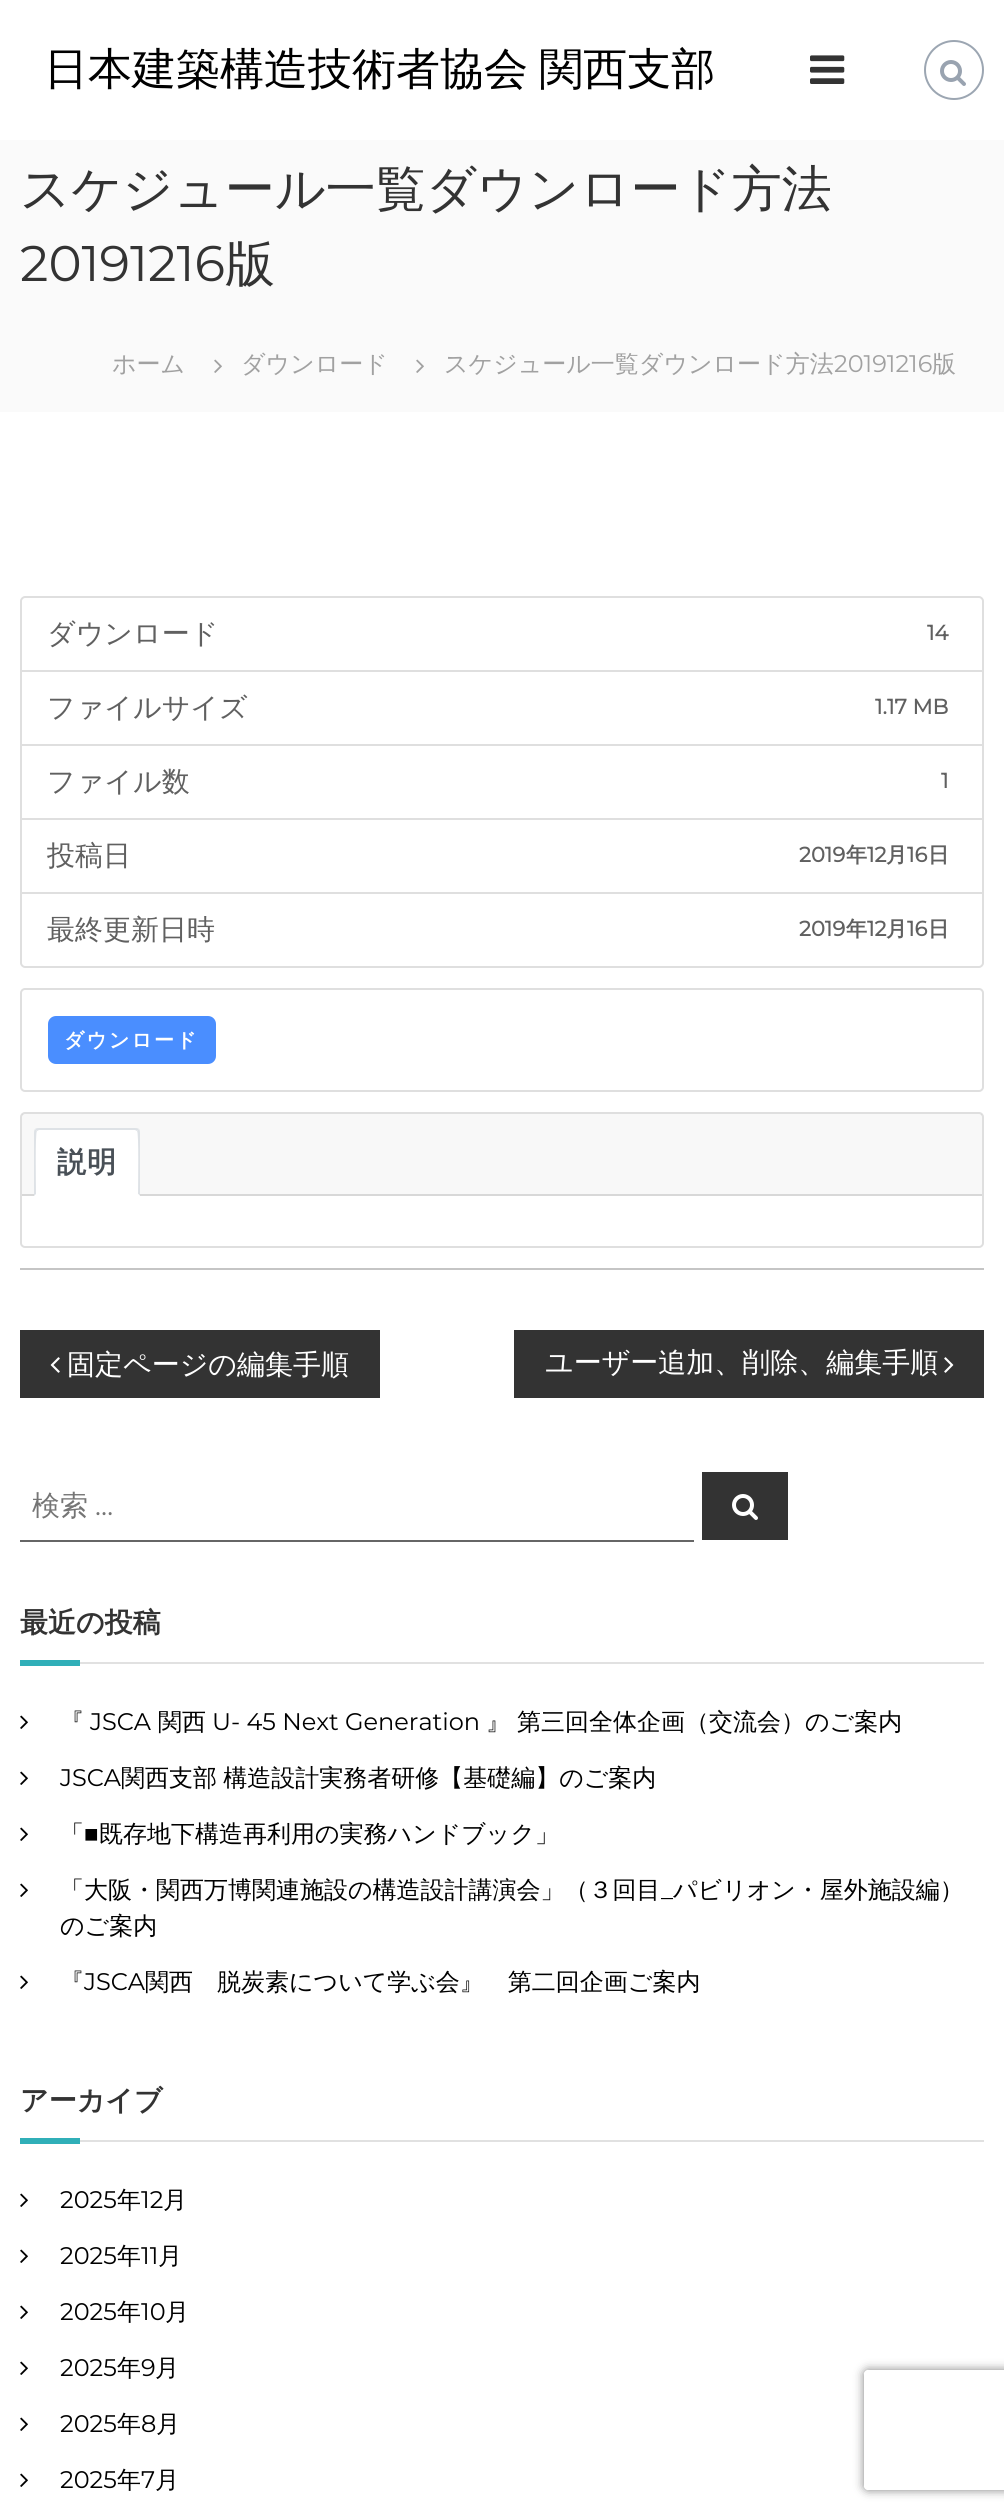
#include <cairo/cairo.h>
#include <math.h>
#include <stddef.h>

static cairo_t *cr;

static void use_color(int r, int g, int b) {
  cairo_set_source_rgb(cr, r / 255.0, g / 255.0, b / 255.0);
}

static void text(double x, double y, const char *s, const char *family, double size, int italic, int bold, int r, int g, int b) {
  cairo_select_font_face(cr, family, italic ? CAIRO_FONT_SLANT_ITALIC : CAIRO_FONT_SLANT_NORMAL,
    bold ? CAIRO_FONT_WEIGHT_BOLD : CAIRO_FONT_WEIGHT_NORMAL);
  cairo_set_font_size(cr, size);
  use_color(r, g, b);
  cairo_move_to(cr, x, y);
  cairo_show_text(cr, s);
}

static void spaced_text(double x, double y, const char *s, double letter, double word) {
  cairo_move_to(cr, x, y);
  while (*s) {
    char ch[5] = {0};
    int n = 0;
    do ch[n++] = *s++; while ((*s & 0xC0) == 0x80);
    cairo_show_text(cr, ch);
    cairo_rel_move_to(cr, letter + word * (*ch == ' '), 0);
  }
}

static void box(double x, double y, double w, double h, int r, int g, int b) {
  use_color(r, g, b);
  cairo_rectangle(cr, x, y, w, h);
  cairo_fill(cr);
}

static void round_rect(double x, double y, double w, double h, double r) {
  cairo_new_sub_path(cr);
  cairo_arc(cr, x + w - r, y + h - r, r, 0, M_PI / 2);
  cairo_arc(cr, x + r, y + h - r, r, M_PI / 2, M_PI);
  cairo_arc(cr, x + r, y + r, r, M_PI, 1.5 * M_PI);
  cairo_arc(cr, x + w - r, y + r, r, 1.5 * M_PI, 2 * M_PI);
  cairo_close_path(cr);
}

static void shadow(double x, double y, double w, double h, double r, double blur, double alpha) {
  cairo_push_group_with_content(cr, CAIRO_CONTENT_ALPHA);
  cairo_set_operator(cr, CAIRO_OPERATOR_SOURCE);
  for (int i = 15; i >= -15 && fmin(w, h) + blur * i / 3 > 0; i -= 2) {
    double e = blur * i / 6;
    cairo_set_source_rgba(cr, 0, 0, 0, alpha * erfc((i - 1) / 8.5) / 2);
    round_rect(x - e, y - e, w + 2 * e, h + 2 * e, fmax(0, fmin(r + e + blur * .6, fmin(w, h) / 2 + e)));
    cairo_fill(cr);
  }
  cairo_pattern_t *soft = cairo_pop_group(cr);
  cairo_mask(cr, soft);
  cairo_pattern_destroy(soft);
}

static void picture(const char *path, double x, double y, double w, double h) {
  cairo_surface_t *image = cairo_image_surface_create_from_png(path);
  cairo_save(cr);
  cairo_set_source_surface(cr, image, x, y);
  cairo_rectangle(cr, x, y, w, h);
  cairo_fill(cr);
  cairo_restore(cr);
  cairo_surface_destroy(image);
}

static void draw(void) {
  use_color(255, 255, 255);
  cairo_paint(cr);
  picture("img_01.png", 810, 55, 35, 29);
  cairo_arc(cr, 954, 70, 29, 0, 2 * M_PI);
  use_color(156, 166, 178);
  cairo_stroke(cr);
  picture("img_02.png", 940, 60, 26, 26);
  box(0, 140, 1004, 272, 250, 250, 250);
  picture("img_03.png", 214, 359, 8, 14);
  picture("img_03.png", 416, 359, 8, 14);
  box(20, 1268, 964, 2, 197, 197, 197);
  cairo_new_path(cr);
  cairo_move_to(cr, 25, 597);
  cairo_line_to(cr, 979, 597);
  cairo_curve_to(cr, 981, 597, 983, 599, 983, 601);
  cairo_line_to(cr, 983, 671);
  cairo_line_to(cr, 21, 671);
  cairo_line_to(cr, 21, 601);
  cairo_curve_to(cr, 21, 599, 23, 597, 25, 597);
  cairo_close_path(cr);
  use_color(223, 223, 223);
  cairo_stroke(cr);
  cairo_rectangle(cr, 21, 671, 962, 74);
  cairo_stroke(cr);
  cairo_rectangle(cr, 21, 745, 962, 74);
  cairo_stroke(cr);
  cairo_rectangle(cr, 21, 819, 962, 74);
  cairo_stroke(cr);
  use_color(255, 255, 255);
  cairo_new_path(cr);
  cairo_move_to(cr, 21, 893);
  cairo_line_to(cr, 983, 893);
  cairo_line_to(cr, 983, 963);
  cairo_curve_to(cr, 983, 965, 981, 967, 979, 967);
  cairo_line_to(cr, 25, 967);
  cairo_curve_to(cr, 23, 967, 21, 965, 21, 963);
  cairo_close_path(cr);
  cairo_fill_preserve(cr);
  use_color(223, 223, 223);
  cairo_stroke(cr);
  round_rect(21, 989, 962, 102, 4);
  cairo_stroke(cr);
  use_color(74, 142, 255);
  round_rect(49, 1017, 166, 46, 7);
  cairo_fill_preserve(cr);
  cairo_stroke(cr);
  round_rect(21, 1113, 962, 134, 4);
  use_color(223, 223, 223);
  cairo_stroke(cr);
  cairo_set_source_rgba(cr, 0, 0, 0, 0.03);
  cairo_rectangle(cr, 22, 1114, 960, 80);
  cairo_fill(cr);
  box(22, 1194, 960, 2, 216, 216, 216);
  use_color(255, 255, 255);
  cairo_new_path(cr);
  cairo_move_to(cr, 39, 1128);
  cairo_line_to(cr, 135, 1128);
  cairo_curve_to(cr, 138, 1128, 140, 1130, 140, 1133);
  cairo_line_to(cr, 140, 1196);
  cairo_line_to(cr, 34, 1196);
  cairo_line_to(cr, 34, 1133);
  cairo_curve_to(cr, 34, 1130, 36, 1128, 39, 1128);
  cairo_close_path(cr);
  cairo_fill(cr);
  use_color(222, 226, 230);
  cairo_new_path(cr);
  cairo_move_to(cr, 39, 1128);
  cairo_curve_to(cr, 38, 1128, 36, 1128, 35, 1129);
  cairo_line_to(cr, 37, 1131);
  cairo_line_to(cr, 39, 1130);
  cairo_line_to(cr, 135, 1130);
  cairo_line_to(cr, 137, 1131);
  cairo_line_to(cr, 139, 1129);
  cairo_curve_to(cr, 138, 1128, 136, 1128, 135, 1128);
  cairo_close_path(cr);
  cairo_fill(cr);
  cairo_new_path(cr);
  cairo_move_to(cr, 140, 1196);
  cairo_line_to(cr, 140, 1133);
  cairo_curve_to(cr, 140, 1132, 140, 1130, 139, 1129);
  cairo_line_to(cr, 137, 1131);
  cairo_curve_to(cr, 139, 1132, 138, 1187, 138, 1194);
  cairo_close_path(cr);
  cairo_fill(cr);
  use_color(255, 255, 255);
  cairo_new_path(cr);
  cairo_move_to(cr, 140, 1196);
  cairo_line_to(cr, 138, 1194);
  cairo_line_to(cr, 36, 1194);
  cairo_line_to(cr, 34, 1196);
  cairo_close_path(cr);
  cairo_fill(cr);
  use_color(222, 226, 230);
  cairo_new_path(cr);
  cairo_move_to(cr, 34, 1196);
  cairo_line_to(cr, 36, 1194);
  cairo_curve_to(cr, 36, 1187, 35, 1132, 37, 1131);
  cairo_line_to(cr, 35, 1129);
  cairo_curve_to(cr, 34, 1130, 34, 1132, 34, 1133);
  cairo_close_path(cr);
  cairo_fill(cr);
  box(20, 1330, 360, 68, 51, 51, 51);
  picture("img_04.png", 50, 1357, 10, 16);
  box(514, 1330, 470, 68, 51, 51, 51);
  picture("img_05.png", 944, 1357, 10, 16);
  box(20, 1540, 674, 2, 102, 102, 102);
  box(702, 1472, 86, 68, 51, 51, 51);
  picture("img_06.png", 732, 1494, 26, 26);
  box(20, 1660, 60, 6, 48, 175, 184);
  box(80, 1662, 904, 2, 225, 225, 225);
  picture("img_07.png", 20, 1715, 8, 14);
  picture("img_07.png", 20, 1771, 8, 14);
  picture("img_07.png", 20, 1827, 8, 14);
  picture("img_07.png", 20, 1883, 8, 14);
  picture("img_07.png", 20, 1975, 8, 14);
  box(20, 2138, 60, 6, 48, 175, 184);
  box(80, 2140, 904, 2, 225, 225, 225);
  picture("img_07.png", 20, 2193, 8, 14);
  picture("img_07.png", 20, 2249, 8, 14);
  picture("img_07.png", 20, 2305, 8, 14);
  picture("img_07.png", 20, 2361, 8, 14);
  picture("img_07.png", 20, 2417, 8, 14);
  picture("img_07.png", 20, 2473, 8, 14);
  cairo_save(cr);
  cairo_set_fill_rule(cr, CAIRO_FILL_RULE_EVEN_ODD);
  cairo_new_path(cr);
  cairo_move_to(cr, 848, 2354);
  cairo_line_to(cr, 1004, 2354);
  cairo_line_to(cr, 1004, 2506);
  cairo_line_to(cr, 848, 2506);
  cairo_close_path(cr);
  cairo_move_to(cr, 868, 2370);
  cairo_line_to(cr, 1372, 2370);
  cairo_curve_to(cr, 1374, 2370, 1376, 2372, 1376, 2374);
  cairo_line_to(cr, 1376, 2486);
  cairo_curve_to(cr, 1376, 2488, 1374, 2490, 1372, 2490);
  cairo_line_to(cr, 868, 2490);
  cairo_curve_to(cr, 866, 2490, 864, 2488, 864, 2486);
  cairo_line_to(cr, 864, 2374);
  cairo_curve_to(cr, 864, 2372, 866, 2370, 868, 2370);
  cairo_close_path(cr);
  cairo_clip(cr);
  use_color(128, 128, 128);
  shadow(864, 2370, 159, 120, 4, 5, 1);
  cairo_restore(cr);
  cairo_select_font_face(cr, "WenQuanYi Zen Hei Medium", CAIRO_FONT_SLANT_NORMAL, CAIRO_FONT_WEIGHT_NORMAL);
  cairo_set_font_size(cr, 44);
  use_color(0, 0, 0);
  spaced_text(44, 84, "日本建築構造技術者協会 関西支部", 0, -2);
  text(20, 206, "スケジュール一覧ダウンロード方法", "WenQuanYi Zen Hei Medium", 50, 0, 0, 51, 51, 51);
  text(20, 281, "20191216", "Montserrat Thin", 50, 0, 0, 51, 51, 51);
  text(225, 281, "版", "WenQuanYi Zen Hei Medium", 50, 0, 0, 51, 51, 51);
  text(112, 372, "ホーム", "WenQuanYi Zen Hei Medium", 24, 0, 0, 161, 161, 161);
  text(241, 372, "ダウンロード", "WenQuanYi Zen Hei Medium", 24, 0, 0, 161, 161, 161);
  text(444, 372, "スケジュール一覧ダウンロード方法", "WenQuanYi Zen Hei Medium", 24, 0, 0, 161, 161, 161);
  text(834, 372, "20191216", "Montserrat Thin", 24, 0, 0, 161, 161, 161);
  text(932, 372, "版", "WenQuanYi Zen Hei Medium", 24, 0, 0, 161, 161, 161);
  text(47, 643, "ダウンロード", "WenQuanYi Zen Hei Medium", 28, 0, 0, 96, 96, 96);
  text(927, 640, "14", "Montserrat", 21, 0, 1, 96, 96, 96);
  text(47, 717, "ファイルサイズ", "WenQuanYi Zen Hei Medium", 28, 0, 0, 96, 96, 96);
  text(875, 714, "1.17 MB", "Montserrat", 21, 0, 1, 96, 96, 96);
  text(47, 791, "ファイル数", "WenQuanYi Zen Hei Medium", 28, 0, 0, 96, 96, 96);
  text(941, 788, "1", "Montserrat", 21, 0, 1, 96, 96, 96);
  text(47, 865, "投稿日", "WenQuanYi Zen Hei Medium", 28, 0, 0, 96, 96, 96);
  text(799, 862, "2019", "Montserrat", 21, 0, 1, 96, 96, 96);
  text(846, 862, "年", "WenQuanYi Zen Hei", 21, 0, 1, 96, 96, 96);
  text(867, 862, "12", "Montserrat", 21, 0, 1, 96, 96, 96);
  text(886, 862, "月", "WenQuanYi Zen Hei", 21, 0, 1, 96, 96, 96);
  text(907, 862, "16", "Montserrat", 21, 0, 1, 96, 96, 96);
  text(928, 862, "日", "WenQuanYi Zen Hei", 21, 0, 1, 96, 96, 96);
  text(47, 939, "最終更新日時", "WenQuanYi Zen Hei Medium", 28, 0, 0, 96, 96, 96);
  text(799, 936, "2019", "Montserrat", 21, 0, 1, 96, 96, 96);
  text(846, 936, "年", "WenQuanYi Zen Hei", 21, 0, 1, 96, 96, 96);
  text(867, 936, "12", "Montserrat", 21, 0, 1, 96, 96, 96);
  text(886, 936, "月", "WenQuanYi Zen Hei", 21, 0, 1, 96, 96, 96);
  text(907, 936, "16", "Montserrat", 21, 0, 1, 96, 96, 96);
  text(928, 936, "日", "WenQuanYi Zen Hei", 21, 0, 1, 96, 96, 96);
  cairo_set_font_size(cr, 20);
  use_color(255, 255, 255);
  spaced_text(64, 1047, "ダウンロード", 2, 0);
  cairo_set_font_size(cr, 29);
  use_color(73, 80, 87);
  spaced_text(57, 1172, "説明", 1, 0);
  text(67, 1374, "固定ページの編集手順", "WenQuanYi Zen Hei Medium", 28, 0, 0, 255, 255, 255);
  text(545, 1372, "ユーザー追加、削除、編集手順", "WenQuanYi Zen Hei Medium", 28, 0, 0, 255, 255, 255);
  text(32, 1515, "検索", "WenQuanYi Zen Hei Medium", 28, 0, 0, 117, 117, 117);
  text(95, 1515, "…", "Montserrat Thin", 28, 0, 0, 117, 117, 117);
  text(20, 1632, "最近の投稿", "WenQuanYi Zen Hei", 28, 0, 1, 51, 51, 51);
  text(60, 1730, "『", "WenQuanYi Zen Hei Medium", 24, 0, 0, 0, 0, 0);
  text(90, 1730, "JSCA", "Montserrat Thin", 24, 0, 0, 0, 0, 0);
  text(158, 1730, "関西", "WenQuanYi Zen Hei Medium", 24, 0, 0, 0, 0, 0);
  text(212, 1730, "U- 45 Next Generation", "Montserrat Thin", 24, 0, 0, 0, 0, 0);
  text(486, 1730, "』", "WenQuanYi Zen Hei Medium", 24, 0, 0, 0, 0, 0);
  text(517, 1730, "第三回全体企画（交流会）のご案内", "WenQuanYi Zen Hei Medium", 24, 0, 0, 0, 0, 0);
  text(60, 1786, "JSCA", "Montserrat Thin", 24, 0, 0, 0, 0, 0);
  cairo_select_font_face(cr, "WenQuanYi Zen Hei Medium", CAIRO_FONT_SLANT_NORMAL, CAIRO_FONT_WEIGHT_NORMAL);
  spaced_text(121, 1786, "関西支部 構造設計実務者研修【基礎編】のご案内", 0, -1);
  text(60, 1842, "「", "WenQuanYi Zen Hei Medium", 24, 0, 0, 0, 0, 0);
  text(84, 1842, "■", "Liberation Sans", 24, 0, 0, 0, 0, 0);
  text(99, 1842, "既存地下構造再利用の実務ハンドブック」", "WenQuanYi Zen Hei Medium", 24, 0, 0, 0, 0, 0);
  text(60, 1898, "「大阪・関西万博関連施設の構造設計講演会」（３回目", "WenQuanYi Zen Hei Medium", 24, 0, 0, 0, 0, 0);
  text(661, 1898, "_", "Montserrat Thin", 24, 0, 0, 0, 0, 0);
  text(673, 1898, "パビリオン・屋外施設編）", "WenQuanYi Zen Hei Medium", 24, 0, 0, 0, 0, 0);
  text(60, 1934, "のご案内", "WenQuanYi Zen Hei Medium", 24, 0, 0, 0, 0, 0);
  text(60, 1990, "『", "WenQuanYi Zen Hei Medium", 24, 0, 0, 0, 0, 0);
  text(84, 1990, "JSCA", "Montserrat Thin", 24, 0, 0, 0, 0, 0);
  text(145, 1990, "関西　脱炭素について学ぶ会』　第二回企画ご案内", "WenQuanYi Zen Hei Medium", 24, 0, 0, 0, 0, 0);
  text(20, 2110, "アーカイブ", "WenQuanYi Zen Hei", 28, 0, 1, 51, 51, 51);
  text(60, 2208, "2025", "Montserrat Thin", 24, 0, 0, 0, 0, 0);
  text(117, 2208, "年", "WenQuanYi Zen Hei Medium", 24, 0, 0, 0, 0, 0);
  text(141, 2208, "12", "Montserrat Thin", 24, 0, 0, 0, 0, 0);
  text(163, 2208, "月", "WenQuanYi Zen Hei Medium", 24, 0, 0, 0, 0, 0);
  text(60, 2264, "2025", "Montserrat Thin", 24, 0, 0, 0, 0, 0);
  text(117, 2264, "年", "WenQuanYi Zen Hei Medium", 24, 0, 0, 0, 0, 0);
  text(141, 2264, "11", "Montserrat Thin", 24, 0, 0, 0, 0, 0);
  text(158, 2264, "月", "WenQuanYi Zen Hei Medium", 24, 0, 0, 0, 0, 0);
  text(60, 2320, "2025", "Montserrat Thin", 24, 0, 0, 0, 0, 0);
  text(117, 2320, "年", "WenQuanYi Zen Hei Medium", 24, 0, 0, 0, 0, 0);
  text(141, 2320, "10", "Montserrat Thin", 24, 0, 0, 0, 0, 0);
  text(165, 2320, "月", "WenQuanYi Zen Hei Medium", 24, 0, 0, 0, 0, 0);
  text(60, 2376, "2025", "Montserrat Thin", 24, 0, 0, 0, 0, 0);
  text(117, 2376, "年", "WenQuanYi Zen Hei Medium", 24, 0, 0, 0, 0, 0);
  text(141, 2376, "9", "Montserrat Thin", 24, 0, 0, 0, 0, 0);
  text(155, 2376, "月", "WenQuanYi Zen Hei Medium", 24, 0, 0, 0, 0, 0);
  text(60, 2432, "2025", "Montserrat Thin", 24, 0, 0, 0, 0, 0);
  text(117, 2432, "年", "WenQuanYi Zen Hei Medium", 24, 0, 0, 0, 0, 0);
  text(141, 2432, "8", "Montserrat Thin", 24, 0, 0, 0, 0, 0);
  text(156, 2432, "月", "WenQuanYi Zen Hei Medium", 24, 0, 0, 0, 0, 0);
  text(60, 2488, "2025", "Montserrat Thin", 24, 0, 0, 0, 0, 0);
  text(117, 2488, "年", "WenQuanYi Zen Hei Medium", 24, 0, 0, 0, 0, 0);
  text(141, 2488, "7", "Montserrat Thin", 24, 0, 0, 0, 0, 0);
  text(155, 2488, "月", "WenQuanYi Zen Hei Medium", 24, 0, 0, 0, 0, 0);
}

int main(void) {
  cairo_surface_t *surface = cairo_image_surface_create(CAIRO_FORMAT_RGB24, 1004, 2517);
  cr = cairo_create(surface);
  cairo_font_options_t *options = cairo_font_options_create();
  cairo_font_options_set_hint_metrics(options, CAIRO_HINT_METRICS_OFF);
  cairo_font_options_set_hint_style(options, CAIRO_HINT_STYLE_NONE);
  cairo_set_font_options(cr, options);
  cairo_set_miter_limit(cr, 4);
  draw();
  cairo_surface_write_to_png(surface, "out.png");
  cairo_font_options_destroy(options);
  cairo_destroy(cr);
  cairo_surface_destroy(surface);
  return 0;
}
